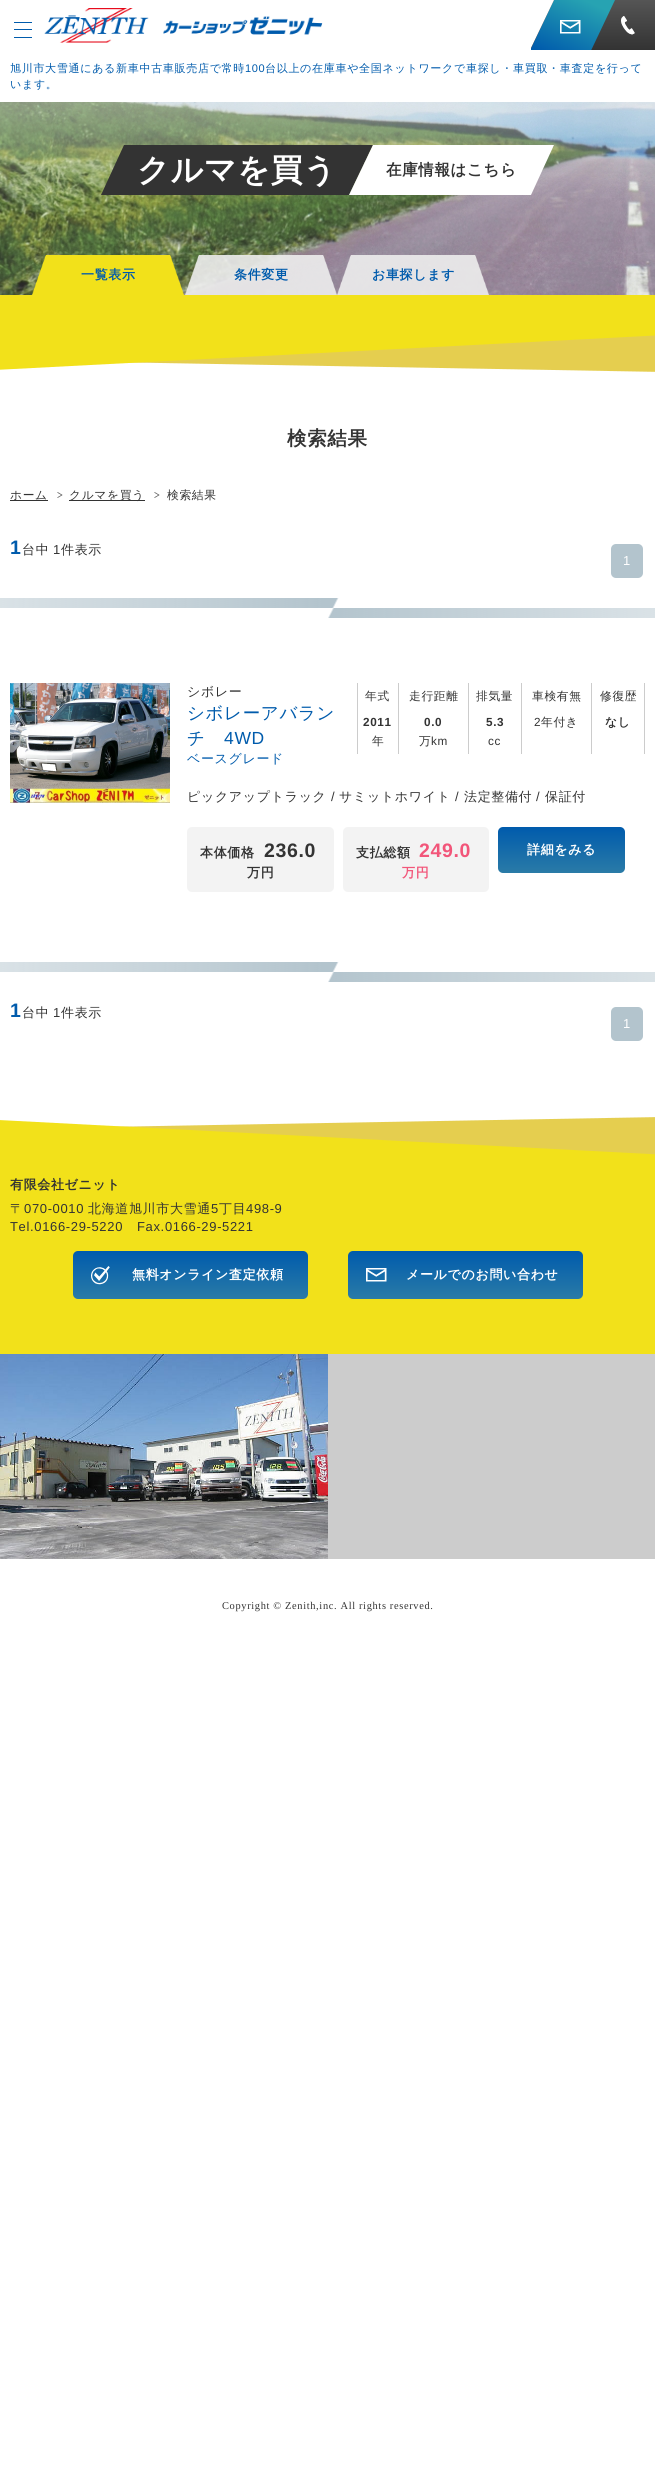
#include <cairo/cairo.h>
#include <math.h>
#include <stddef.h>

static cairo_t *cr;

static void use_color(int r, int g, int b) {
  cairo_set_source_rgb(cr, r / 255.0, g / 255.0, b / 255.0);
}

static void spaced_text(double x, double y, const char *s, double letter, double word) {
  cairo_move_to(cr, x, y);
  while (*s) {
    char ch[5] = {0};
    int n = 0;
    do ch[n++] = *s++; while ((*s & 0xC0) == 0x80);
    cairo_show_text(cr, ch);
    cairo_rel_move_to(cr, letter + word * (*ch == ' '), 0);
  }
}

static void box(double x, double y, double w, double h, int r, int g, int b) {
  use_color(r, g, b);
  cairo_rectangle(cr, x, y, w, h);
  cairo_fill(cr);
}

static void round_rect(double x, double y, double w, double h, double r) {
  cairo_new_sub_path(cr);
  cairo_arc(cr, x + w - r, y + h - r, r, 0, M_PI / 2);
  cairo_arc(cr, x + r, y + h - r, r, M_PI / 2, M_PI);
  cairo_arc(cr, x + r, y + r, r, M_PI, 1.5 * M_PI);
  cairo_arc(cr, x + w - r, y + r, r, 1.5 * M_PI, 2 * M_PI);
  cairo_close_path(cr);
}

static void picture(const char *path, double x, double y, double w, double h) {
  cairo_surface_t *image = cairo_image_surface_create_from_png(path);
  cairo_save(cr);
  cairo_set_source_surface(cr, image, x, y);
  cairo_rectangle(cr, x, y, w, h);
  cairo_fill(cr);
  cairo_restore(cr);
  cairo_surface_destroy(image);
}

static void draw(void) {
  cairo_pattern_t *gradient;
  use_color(255, 255, 255);
  cairo_paint(cr);
  gradient = cairo_pattern_create_linear(593, 0, 593, 50);
  cairo_pattern_add_color_stop_rgba(gradient, 0, 0.333, 0.333, 0.333, 1);
  cairo_pattern_add_color_stop_rgba(gradient, 1, 0.2, 0.2, 0.2, 1);
  cairo_set_source(cr, gradient);
  cairo_pattern_destroy(gradient);
  cairo_rectangle(cr, 531, 0, 124, 50);
  cairo_fill(cr);
  cairo_save(cr);
  cairo_rectangle(cr, 531, 0, 124, 50);
  cairo_clip(cr);
  gradient = cairo_pattern_create_linear(584, 0, 557, 59);
  cairo_pattern_add_color_stop_rgba(gradient, 0, 0.153, 0.639, 0.698, 1);
  cairo_pattern_add_color_stop_rgba(gradient, 1, 0, 0.357, 0.675, 1);
  cairo_set_source(cr, gradient);
  cairo_pattern_destroy(gradient);
  cairo_new_path(cr);
  cairo_move_to(cr, 554, 0);
  cairo_line_to(cr, 615, 0);
  cairo_line_to(cr, 587, 59);
  cairo_line_to(cr, 526, 59);
  cairo_close_path(cr);
  cairo_fill(cr);
  cairo_restore(cr);
  use_color(255, 255, 255);
  cairo_new_path(cr);
  cairo_move_to(cr, 12, 0);
  cairo_line_to(cr, 554, 0);
  cairo_line_to(cr, 530, 50);
  cairo_line_to(cr, -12, 50);
  cairo_close_path(cr);
  cairo_fill(cr);
  box(14, 22, 18, 1, 0, 91, 172);
  box(14, 29, 18, 1, 0, 91, 172);
  box(14, 37, 18, 1, 0, 91, 172);
  picture("img_01.png", 44, 8, 279, 35);
  picture("img_02.png", 560, 20, 21, 14);
  picture("img_03.png", 621, 16, 14, 19);
  use_color(229, 206, 79);
  cairo_new_path(cr);
  cairo_move_to(cr, -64, 251);
  cairo_line_to(cr, 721, 265);
  cairo_line_to(cr, 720, 373);
  cairo_line_to(cr, -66, 359);
  cairo_close_path(cr);
  cairo_fill(cr);
  use_color(242, 225, 26);
  cairo_new_path(cr);
  cairo_move_to(cr, -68, 265);
  cairo_line_to(cr, 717, 224);
  cairo_line_to(cr, 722, 332);
  cairo_line_to(cr, -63, 373);
  cairo_close_path(cr);
  cairo_fill(cr);
  picture("img_04.png", 0, 102, 655, 193);
  use_color(51, 51, 51);
  cairo_new_path(cr);
  cairo_move_to(cr, 124, 145);
  cairo_line_to(cr, 373, 145);
  cairo_line_to(cr, 349, 195);
  cairo_line_to(cr, 101, 195);
  cairo_close_path(cr);
  cairo_fill(cr);
  use_color(255, 255, 255);
  cairo_new_path(cr);
  cairo_move_to(cr, 373, 145);
  cairo_line_to(cr, 554, 145);
  cairo_line_to(cr, 531, 195);
  cairo_line_to(cr, 349, 195);
  cairo_close_path(cr);
  cairo_fill(cr);
  picture("img_05.png", 32, 255, 152, 40);
  picture("img_06.png", 185, 255, 152, 40);
  picture("img_07.png", 337, 255, 152, 40);
  box(10, 500, 38, 1, 51, 51, 51);
  picture("img_08.png", 57, 492, 6, 6);
  box(69, 500, 76, 1, 51, 51, 51);
  picture("img_08.png", 154, 492, 6, 6);
  picture("img_09.png", 0, 598, 655, 20);
  use_color(179, 196, 205);
  round_rect(611, 544, 32, 34, 5);
  cairo_fill(cr);
  picture("img_10.png", 10, 683, 160, 120);
  box(357, 683, 1, 71, 204, 204, 204);
  box(398, 683, 1, 71, 204, 204, 204);
  box(468, 683, 1, 71, 204, 204, 204);
  box(521, 683, 1, 71, 204, 204, 204);
  box(591, 683, 1, 71, 204, 204, 204);
  box(644, 683, 1, 71, 204, 204, 204);
  use_color(243, 243, 243);
  round_rect(187, 827, 147, 65, 5);
  cairo_fill(cr);
  round_rect(343, 827, 146, 65, 5);
  cairo_fill(cr);
  gradient = cairo_pattern_create_linear(562, 827, 562, 873);
  cairo_pattern_add_color_stop_rgba(gradient, 0, 0, 0.357, 0.675, 1);
  cairo_pattern_add_color_stop_rgba(gradient, 1, 0.165, 0.482, 0.655, 1);
  cairo_set_source(cr, gradient);
  cairo_pattern_destroy(gradient);
  round_rect(498, 827, 127, 46, 5);
  cairo_fill(cr);
  picture("img_09.png", 0, 962, 655, 20);
  use_color(179, 196, 205);
  round_rect(611, 1007, 32, 34, 5);
  cairo_fill(cr);
  use_color(229, 206, 79);
  cairo_new_path(cr);
  cairo_move_to(cr, -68, 1130);
  cairo_line_to(cr, 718, 1116);
  cairo_line_to(cr, 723, 1362);
  cairo_line_to(cr, -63, 1376);
  cairo_close_path(cr);
  cairo_fill(cr);
  use_color(242, 225, 26);
  cairo_new_path(cr);
  cairo_move_to(cr, -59, 1117);
  cairo_line_to(cr, 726, 1158);
  cairo_line_to(cr, 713, 1403);
  cairo_line_to(cr, -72, 1362);
  cairo_close_path(cr);
  cairo_fill(cr);
  gradient = cairo_pattern_create_linear(191, 1251, 191, 1299);
  cairo_pattern_add_color_stop_rgba(gradient, 0, 0, 0.357, 0.675, 1);
  cairo_pattern_add_color_stop_rgba(gradient, 1, 0.165, 0.482, 0.655, 1);
  cairo_set_source(cr, gradient);
  cairo_pattern_destroy(gradient);
  round_rect(73, 1251, 235, 48, 5);
  cairo_fill(cr);
  picture("img_11.png", 91, 1266, 19, 19);
  gradient = cairo_pattern_create_linear(466, 1251, 466, 1299);
  cairo_pattern_add_color_stop_rgba(gradient, 0, 0, 0.357, 0.675, 1);
  cairo_pattern_add_color_stop_rgba(gradient, 1, 0.165, 0.482, 0.655, 1);
  cairo_set_source(cr, gradient);
  cairo_pattern_destroy(gradient);
  round_rect(348, 1251, 235, 48, 5);
  cairo_fill(cr);
  picture("img_12.png", 366, 1268, 21, 14);
  box(328, 1354, 327, 205, 204, 204, 204);
  picture("img_13.png", 0, 1354, 328, 205);
  cairo_select_font_face(cr, "WenQuanYi Zen Hei Medium", CAIRO_FONT_SLANT_NORMAL, CAIRO_FONT_WEIGHT_NORMAL);
  cairo_set_font_size(cr, 11.05);
  use_color(0, 91, 172);
  spaced_text(10, 72, "旭川市大雪通にある新車中古車販売店で常時", 0.65, 0);
  cairo_select_font_face(cr, "Liberation Sans", CAIRO_FONT_SLANT_NORMAL, CAIRO_FONT_WEIGHT_NORMAL);
  spaced_text(245, 72, "100", 0.65, 0);
  cairo_select_font_face(cr, "WenQuanYi Zen Hei Medium", CAIRO_FONT_SLANT_NORMAL, CAIRO_FONT_WEIGHT_NORMAL);
  spaced_text(265, 72, "台以上の在庫車や全国ネットワークで車探し・車買取・車査定を行って", 0.65, 0);
  spaced_text(10, 88, "います。", 0.65, 0);
  cairo_select_font_face(cr, "WenQuanYi Zen Hei", CAIRO_FONT_SLANT_NORMAL, CAIRO_FONT_WEIGHT_BOLD);
  cairo_set_font_size(cr, 32);
  use_color(255, 255, 255);
  spaced_text(137, 181, "クルマを買う", 0.65, 0);
  cairo_set_font_size(cr, 15.5);
  use_color(51, 51, 51);
  spaced_text(386, 175, "在庫情報はこちら", 0.65, 0);
  cairo_set_font_size(cr, 13);
  use_color(0, 91, 172);
  spaced_text(81, 279, "一覧表示", 0.65, 0);
  spaced_text(234, 279, "条件変更", 0.65, 0);
  spaced_text(372, 279, "お車探します", 0.65, 0);
  cairo_set_font_size(cr, 19.5);
  use_color(51, 51, 51);
  spaced_text(287, 445, "検索結果", 0.65, 0);
  cairo_select_font_face(cr, "WenQuanYi Zen Hei Medium", CAIRO_FONT_SLANT_NORMAL, CAIRO_FONT_WEIGHT_NORMAL);
  cairo_set_font_size(cr, 11.75);
  spaced_text(10, 499, "ホーム", 0.65, 0);
  spaced_text(69, 499, "クルマを買う", 0.65, 0);
  spaced_text(167, 499, "検索結果", 0.65, 0);
  cairo_select_font_face(cr, "Liberation Sans", CAIRO_FONT_SLANT_NORMAL, CAIRO_FONT_WEIGHT_BOLD);
  cairo_set_font_size(cr, 19.5);
  use_color(0, 91, 172);
  spaced_text(10, 554, "1", 0.65, 0);
  cairo_select_font_face(cr, "WenQuanYi Zen Hei Medium", CAIRO_FONT_SLANT_NORMAL, CAIRO_FONT_WEIGHT_NORMAL);
  cairo_set_font_size(cr, 13);
  use_color(51, 51, 51);
  spaced_text(22, 554, "台中", 0.65, 0);
  cairo_select_font_face(cr, "Liberation Sans", CAIRO_FONT_SLANT_NORMAL, CAIRO_FONT_WEIGHT_NORMAL);
  spaced_text(53, 554, "1", 0.65, 0);
  cairo_select_font_face(cr, "WenQuanYi Zen Hei Medium", CAIRO_FONT_SLANT_NORMAL, CAIRO_FONT_WEIGHT_NORMAL);
  spaced_text(61, 554, "件表示", 0.65, 0);
  cairo_select_font_face(cr, "Liberation Sans", CAIRO_FONT_SLANT_NORMAL, CAIRO_FONT_WEIGHT_NORMAL);
  use_color(255, 255, 255);
  spaced_text(623, 565, "1", 0.65, 0);
  cairo_select_font_face(cr, "WenQuanYi Zen Hei Medium", CAIRO_FONT_SLANT_NORMAL, CAIRO_FONT_WEIGHT_NORMAL);
  use_color(51, 51, 51);
  spaced_text(187, 696, "シボレー", 0.65, 0);
  cairo_set_font_size(cr, 17.5);
  use_color(0, 91, 172);
  spaced_text(187, 719, "シボレーアバラン", 0.65, 0);
  spaced_text(187, 744, "チ", 0.65, 0);
  cairo_select_font_face(cr, "Liberation Sans", CAIRO_FONT_SLANT_NORMAL, CAIRO_FONT_WEIGHT_NORMAL);
  spaced_text(224, 744, "4WD", 0.65, 0);
  cairo_select_font_face(cr, "WenQuanYi Zen Hei Medium", CAIRO_FONT_SLANT_NORMAL, CAIRO_FONT_WEIGHT_NORMAL);
  cairo_set_font_size(cr, 13);
  spaced_text(187, 763, "ベースグレード", 0.65, 0);
  cairo_set_font_size(cr, 11.75);
  use_color(51, 51, 51);
  spaced_text(365, 700, "年式", 0.65, 0);
  cairo_select_font_face(cr, "Liberation Sans", CAIRO_FONT_SLANT_NORMAL, CAIRO_FONT_WEIGHT_BOLD);
  spaced_text(363, 726, "2011", 0.65, 0);
  cairo_select_font_face(cr, "WenQuanYi Zen Hei Medium", CAIRO_FONT_SLANT_NORMAL, CAIRO_FONT_WEIGHT_NORMAL);
  spaced_text(372, 745, "年", 0.65, 0);
  spaced_text(409, 700, "走行距離", 0.65, 0);
  cairo_select_font_face(cr, "Liberation Sans", CAIRO_FONT_SLANT_NORMAL, CAIRO_FONT_WEIGHT_BOLD);
  spaced_text(424, 726, "0.0", 0.65, 0);
  cairo_select_font_face(cr, "WenQuanYi Zen Hei Medium", CAIRO_FONT_SLANT_NORMAL, CAIRO_FONT_WEIGHT_NORMAL);
  spaced_text(419, 745, "万", 0.65, 0);
  cairo_select_font_face(cr, "Liberation Sans", CAIRO_FONT_SLANT_NORMAL, CAIRO_FONT_WEIGHT_NORMAL);
  spaced_text(431, 745, "km", 0.65, 0);
  cairo_select_font_face(cr, "WenQuanYi Zen Hei Medium", CAIRO_FONT_SLANT_NORMAL, CAIRO_FONT_WEIGHT_NORMAL);
  spaced_text(476, 700, "排気量", 0.65, 0);
  cairo_select_font_face(cr, "Liberation Sans", CAIRO_FONT_SLANT_NORMAL, CAIRO_FONT_WEIGHT_BOLD);
  spaced_text(486, 726, "5.3", 0.65, 0);
  cairo_select_font_face(cr, "Liberation Sans", CAIRO_FONT_SLANT_NORMAL, CAIRO_FONT_WEIGHT_NORMAL);
  spaced_text(488, 745, "cc", 0.65, 0);
  cairo_select_font_face(cr, "WenQuanYi Zen Hei Medium", CAIRO_FONT_SLANT_NORMAL, CAIRO_FONT_WEIGHT_NORMAL);
  spaced_text(532, 700, "車検有無", 0.65, 0);
  cairo_select_font_face(cr, "Liberation Sans", CAIRO_FONT_SLANT_NORMAL, CAIRO_FONT_WEIGHT_NORMAL);
  spaced_text(534, 726, "2", 0.65, 0);
  cairo_select_font_face(cr, "WenQuanYi Zen Hei Medium", CAIRO_FONT_SLANT_NORMAL, CAIRO_FONT_WEIGHT_NORMAL);
  spaced_text(541, 726, "年付き", 0.65, 0);
  spaced_text(600, 700, "修復歴", 0.65, 0);
  cairo_select_font_face(cr, "WenQuanYi Zen Hei", CAIRO_FONT_SLANT_NORMAL, CAIRO_FONT_WEIGHT_BOLD);
  spaced_text(605, 726, "なし", 0.65, 0);
  cairo_select_font_face(cr, "WenQuanYi Zen Hei Medium", CAIRO_FONT_SLANT_NORMAL, CAIRO_FONT_WEIGHT_NORMAL);
  cairo_set_font_size(cr, 13);
  spaced_text(187, 801, "ピックアップトラック", 0.65, 0);
  cairo_select_font_face(cr, "Liberation Sans", CAIRO_FONT_SLANT_NORMAL, CAIRO_FONT_WEIGHT_NORMAL);
  spaced_text(331, 801, "/", 0.65, 0);
  cairo_select_font_face(cr, "WenQuanYi Zen Hei Medium", CAIRO_FONT_SLANT_NORMAL, CAIRO_FONT_WEIGHT_NORMAL);
  spaced_text(339, 801, "サミットホワイト", 0.65, 0);
  cairo_select_font_face(cr, "Liberation Sans", CAIRO_FONT_SLANT_NORMAL, CAIRO_FONT_WEIGHT_NORMAL);
  spaced_text(455, 801, "/", 0.65, 0);
  cairo_select_font_face(cr, "WenQuanYi Zen Hei Medium", CAIRO_FONT_SLANT_NORMAL, CAIRO_FONT_WEIGHT_NORMAL);
  spaced_text(464, 801, "法定整備付", 0.65, 0);
  cairo_select_font_face(cr, "Liberation Sans", CAIRO_FONT_SLANT_NORMAL, CAIRO_FONT_WEIGHT_NORMAL);
  spaced_text(536, 801, "/", 0.65, 0);
  cairo_select_font_face(cr, "WenQuanYi Zen Hei Medium", CAIRO_FONT_SLANT_NORMAL, CAIRO_FONT_WEIGHT_NORMAL);
  spaced_text(545, 801, "保証付", 0.65, 0);
  cairo_select_font_face(cr, "WenQuanYi Zen Hei", CAIRO_FONT_SLANT_NORMAL, CAIRO_FONT_WEIGHT_BOLD);
  spaced_text(200, 857, "本体価格", 0.65, 0);
  cairo_select_font_face(cr, "Liberation Sans", CAIRO_FONT_SLANT_NORMAL, CAIRO_FONT_WEIGHT_BOLD);
  cairo_set_font_size(cr, 19.5);
  spaced_text(264, 857, "236.0", 0.65, 0);
  cairo_select_font_face(cr, "WenQuanYi Zen Hei", CAIRO_FONT_SLANT_NORMAL, CAIRO_FONT_WEIGHT_BOLD);
  cairo_set_font_size(cr, 13);
  spaced_text(247, 877, "万円", 0.65, 0);
  spaced_text(356, 857, "支払総額", 0.65, 0);
  cairo_select_font_face(cr, "Liberation Sans", CAIRO_FONT_SLANT_NORMAL, CAIRO_FONT_WEIGHT_BOLD);
  cairo_set_font_size(cr, 19.5);
  use_color(242, 85, 121);
  spaced_text(419, 857, "249.0", 0.65, 0);
  cairo_select_font_face(cr, "WenQuanYi Zen Hei", CAIRO_FONT_SLANT_NORMAL, CAIRO_FONT_WEIGHT_BOLD);
  cairo_set_font_size(cr, 13);
  spaced_text(402, 877, "万円", 0.65, 0);
  use_color(255, 255, 255);
  spaced_text(527, 854, "詳細をみる", 0.65, 0);
  cairo_select_font_face(cr, "Liberation Sans", CAIRO_FONT_SLANT_NORMAL, CAIRO_FONT_WEIGHT_BOLD);
  cairo_set_font_size(cr, 19.5);
  use_color(0, 91, 172);
  spaced_text(10, 1017, "1", 0.65, 0);
  cairo_select_font_face(cr, "WenQuanYi Zen Hei Medium", CAIRO_FONT_SLANT_NORMAL, CAIRO_FONT_WEIGHT_NORMAL);
  cairo_set_font_size(cr, 13);
  use_color(51, 51, 51);
  spaced_text(22, 1017, "台中", 0.65, 0);
  cairo_select_font_face(cr, "Liberation Sans", CAIRO_FONT_SLANT_NORMAL, CAIRO_FONT_WEIGHT_NORMAL);
  spaced_text(53, 1017, "1", 0.65, 0);
  cairo_select_font_face(cr, "WenQuanYi Zen Hei Medium", CAIRO_FONT_SLANT_NORMAL, CAIRO_FONT_WEIGHT_NORMAL);
  spaced_text(61, 1017, "件表示", 0.65, 0);
  cairo_select_font_face(cr, "Liberation Sans", CAIRO_FONT_SLANT_NORMAL, CAIRO_FONT_WEIGHT_NORMAL);
  use_color(255, 255, 255);
  spaced_text(623, 1028, "1", 0.65, 0);
  cairo_select_font_face(cr, "WenQuanYi Zen Hei", CAIRO_FONT_SLANT_NORMAL, CAIRO_FONT_WEIGHT_BOLD);
  use_color(51, 51, 51);
  spaced_text(10, 1189, "有限会社ゼニット", 0.65, 0);
  cairo_select_font_face(cr, "WenQuanYi Zen Hei Medium", CAIRO_FONT_SLANT_NORMAL, CAIRO_FONT_WEIGHT_NORMAL);
  spaced_text(10, 1213, "〒", 0.65, 0);
  cairo_select_font_face(cr, "Liberation Sans", CAIRO_FONT_SLANT_NORMAL, CAIRO_FONT_WEIGHT_NORMAL);
  spaced_text(24, 1213, "070-0010", 0.65, 0);
  cairo_select_font_face(cr, "WenQuanYi Zen Hei Medium", CAIRO_FONT_SLANT_NORMAL, CAIRO_FONT_WEIGHT_NORMAL);
  spaced_text(88, 1213, "北海道旭川市大雪通", 0.65, 0);
  cairo_select_font_face(cr, "Liberation Sans", CAIRO_FONT_SLANT_NORMAL, CAIRO_FONT_WEIGHT_NORMAL);
  spaced_text(211, 1213, "5", 0.65, 0);
  cairo_select_font_face(cr, "WenQuanYi Zen Hei Medium", CAIRO_FONT_SLANT_NORMAL, CAIRO_FONT_WEIGHT_NORMAL);
  spaced_text(219, 1213, "丁目", 0.65, 0);
  cairo_select_font_face(cr, "Liberation Sans", CAIRO_FONT_SLANT_NORMAL, CAIRO_FONT_WEIGHT_NORMAL);
  spaced_text(246, 1213, "498-9", 0.65, 0);
  spaced_text(10, 1231, "Tel.0166-29-5220", 0.65, 0);
  spaced_text(137, 1231, "Fax.0166-29-5221", 0.65, 0);
  cairo_select_font_face(cr, "WenQuanYi Zen Hei", CAIRO_FONT_SLANT_NORMAL, CAIRO_FONT_WEIGHT_BOLD);
  use_color(255, 255, 255);
  spaced_text(132, 1279, "無料オンライン査定依頼", 0.65, 0);
  spaced_text(406, 1279, "メールでのお問い合わせ", 0.65, 0);
  cairo_select_font_face(cr, "Liberation Serif", CAIRO_FONT_SLANT_NORMAL, CAIRO_FONT_WEIGHT_NORMAL);
  cairo_set_font_size(cr, 10.4);
  use_color(51, 51, 51);
  spaced_text(222, 1609, "Copyright © Zenith,inc. All rights reserved.", 0.65, 0);
}

int main(void) {
  cairo_surface_t *surface = cairo_image_surface_create(CAIRO_FORMAT_RGB24, 655, 2473);
  cr = cairo_create(surface);
  cairo_font_options_t *options = cairo_font_options_create();
  cairo_font_options_set_hint_metrics(options, CAIRO_HINT_METRICS_OFF);
  cairo_font_options_set_hint_style(options, CAIRO_HINT_STYLE_NONE);
  cairo_set_font_options(cr, options);
  cairo_set_miter_limit(cr, 4);
  draw();
  cairo_surface_write_to_png(surface, "out.png");
  cairo_font_options_destroy(options);
  cairo_destroy(cr);
  cairo_surface_destroy(surface);
  return 0;
}
